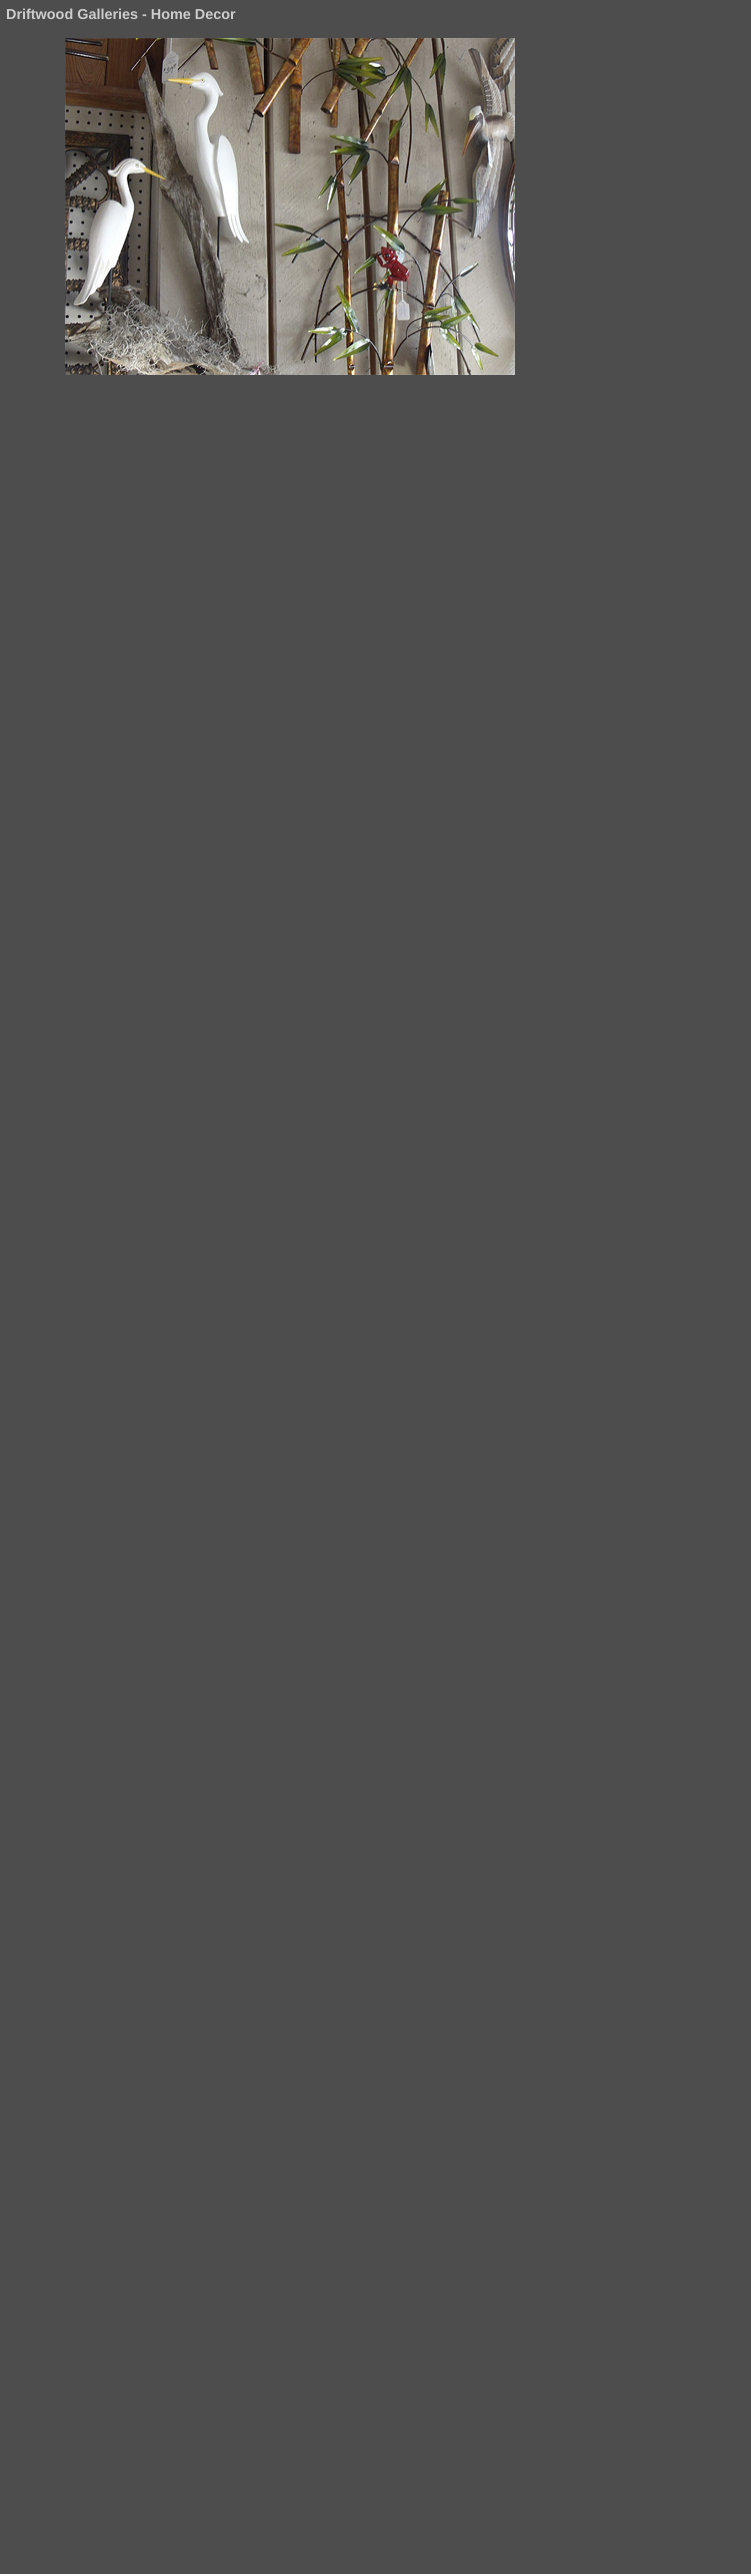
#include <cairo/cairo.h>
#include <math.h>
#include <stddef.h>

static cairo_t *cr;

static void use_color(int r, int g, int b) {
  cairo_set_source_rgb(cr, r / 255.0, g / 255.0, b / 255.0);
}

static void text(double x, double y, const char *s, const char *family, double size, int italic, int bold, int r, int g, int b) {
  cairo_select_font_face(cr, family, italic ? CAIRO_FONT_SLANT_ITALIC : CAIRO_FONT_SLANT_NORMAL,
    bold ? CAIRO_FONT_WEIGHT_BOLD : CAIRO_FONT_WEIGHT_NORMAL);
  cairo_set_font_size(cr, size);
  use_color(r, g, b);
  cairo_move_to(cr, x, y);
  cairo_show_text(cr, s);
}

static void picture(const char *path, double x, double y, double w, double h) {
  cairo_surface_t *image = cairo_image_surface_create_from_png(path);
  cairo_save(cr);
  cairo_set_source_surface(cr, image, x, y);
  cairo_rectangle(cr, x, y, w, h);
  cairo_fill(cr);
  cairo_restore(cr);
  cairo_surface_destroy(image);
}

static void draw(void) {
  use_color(78, 77, 77);
  cairo_paint(cr);
  picture("img_01.png", 65, 38, 450, 337);
  text(6, 19, "Driftwood Galleries - Home Decor", "Liberation Sans", 14.4, 0, 1, 204, 204, 204);
}

int main(void) {
  cairo_surface_t *surface = cairo_image_surface_create(CAIRO_FORMAT_RGB24, 751, 2574);
  cr = cairo_create(surface);
  cairo_font_options_t *options = cairo_font_options_create();
  cairo_font_options_set_hint_metrics(options, CAIRO_HINT_METRICS_OFF);
  cairo_font_options_set_hint_style(options, CAIRO_HINT_STYLE_NONE);
  cairo_set_font_options(cr, options);
  cairo_set_miter_limit(cr, 4);
  draw();
  cairo_surface_write_to_png(surface, "out.png");
  cairo_font_options_destroy(options);
  cairo_destroy(cr);
  cairo_surface_destroy(surface);
  return 0;
}
